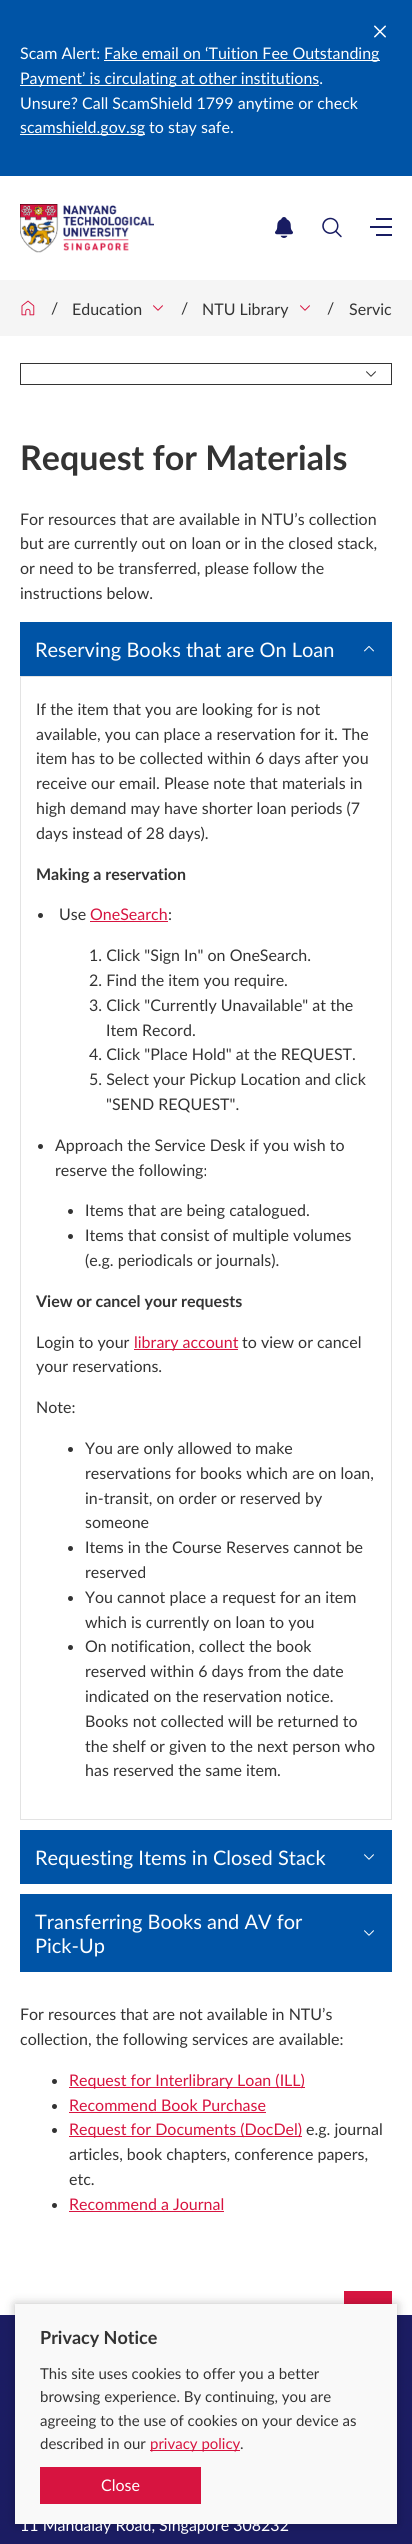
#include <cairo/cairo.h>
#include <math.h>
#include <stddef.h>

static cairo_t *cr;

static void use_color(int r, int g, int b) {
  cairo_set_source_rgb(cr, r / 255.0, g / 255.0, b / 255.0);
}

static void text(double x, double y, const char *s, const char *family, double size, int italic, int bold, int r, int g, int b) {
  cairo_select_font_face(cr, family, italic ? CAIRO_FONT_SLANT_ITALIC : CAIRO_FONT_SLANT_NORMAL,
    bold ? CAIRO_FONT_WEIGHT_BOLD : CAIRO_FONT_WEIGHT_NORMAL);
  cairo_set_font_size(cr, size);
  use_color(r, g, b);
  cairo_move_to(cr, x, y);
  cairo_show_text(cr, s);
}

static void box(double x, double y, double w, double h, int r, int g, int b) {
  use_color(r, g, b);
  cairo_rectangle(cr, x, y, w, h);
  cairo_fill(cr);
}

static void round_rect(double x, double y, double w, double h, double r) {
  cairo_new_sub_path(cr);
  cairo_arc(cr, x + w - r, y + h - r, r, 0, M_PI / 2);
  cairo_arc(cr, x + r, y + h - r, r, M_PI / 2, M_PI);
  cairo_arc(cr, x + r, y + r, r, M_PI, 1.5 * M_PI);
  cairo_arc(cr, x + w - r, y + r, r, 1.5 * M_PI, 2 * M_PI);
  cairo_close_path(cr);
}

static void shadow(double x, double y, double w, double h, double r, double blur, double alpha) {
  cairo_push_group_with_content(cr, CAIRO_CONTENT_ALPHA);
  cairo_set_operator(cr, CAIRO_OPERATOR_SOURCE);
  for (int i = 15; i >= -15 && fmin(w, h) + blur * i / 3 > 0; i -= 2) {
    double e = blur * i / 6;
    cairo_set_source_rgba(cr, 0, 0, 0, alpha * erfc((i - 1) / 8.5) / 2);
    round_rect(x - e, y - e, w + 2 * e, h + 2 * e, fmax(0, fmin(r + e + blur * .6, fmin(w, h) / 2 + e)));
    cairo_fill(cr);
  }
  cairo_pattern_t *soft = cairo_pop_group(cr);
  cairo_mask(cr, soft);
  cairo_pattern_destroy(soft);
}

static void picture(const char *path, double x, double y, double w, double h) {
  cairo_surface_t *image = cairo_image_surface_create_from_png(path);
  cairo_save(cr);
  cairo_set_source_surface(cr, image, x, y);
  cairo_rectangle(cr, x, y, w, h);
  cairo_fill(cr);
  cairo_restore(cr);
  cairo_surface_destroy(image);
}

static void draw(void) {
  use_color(255, 255, 255);
  cairo_paint(cr);
  box(0, 0, 412, 176, 0, 84, 166);
  picture("img_01.png", 374, 25, 12, 13);
  box(104, 60, 276, 1, 255, 255, 255);
  box(20, 85, 299, 1, 255, 255, 255);
  box(20, 134, 125, 1, 255, 255, 255);
  picture("img_02.png", 20, 204, 134, 49);
  picture("img_03.png", 275, 217, 18, 21);
  picture("img_04.png", 322, 217, 20, 21);
  box(376, 218, 16, 2, 24, 28, 98);
  box(370, 226, 22, 2, 24, 28, 98);
  box(376, 234, 16, 2, 24, 28, 98);
  box(0, 280, 412, 56, 245, 245, 245);
  picture("img_05.png", 21, 300, 14, 16);
  picture("img_06.png", 153, 305, 10, 6);
  picture("img_06.png", 300, 305, 10, 6);
  cairo_rectangle(cr, 20.5, 363.5, 371, 21);
  use_color(51, 51, 51);
  cairo_set_line_width(cr, 1);
  cairo_stroke(cr);
  picture("img_07.png", 366, 371, 10, 6);
  box(20, 622, 372, 54, 0, 84, 166);
  picture("img_08.png", 364, 646, 10, 6);
  cairo_rectangle(cr, 20.5, 676.5, 371, 1143);
  use_color(227, 227, 227);
  cairo_stroke(cr);
  use_color(51, 51, 51);
  cairo_arc(cr, 40.5, 915.5, 2.5, 0, 2 * M_PI);
  cairo_fill(cr);
  box(90, 921, 78, 1, 215, 20, 64);
  use_color(51, 51, 51);
  cairo_arc(cr, 40.5, 1146.5, 2.5, 0, 2 * M_PI);
  cairo_fill(cr);
  cairo_arc(cr, 70.5, 1211.5, 2.5, 0, 2 * M_PI);
  cairo_fill(cr);
  cairo_arc(cr, 70.5, 1236.5, 2.5, 0, 2 * M_PI);
  cairo_fill(cr);
  box(134, 1349, 104, 1, 215, 20, 64);
  use_color(51, 51, 51);
  cairo_arc(cr, 70.5, 1449.5, 2.5, 0, 2 * M_PI);
  cairo_fill(cr);
  cairo_arc(cr, 70.5, 1548.5, 2.5, 0, 2 * M_PI);
  cairo_fill(cr);
  cairo_arc(cr, 70.5, 1598.5, 2.5, 0, 2 * M_PI);
  cairo_fill(cr);
  cairo_arc(cr, 70.5, 1647.5, 2.5, 0, 2 * M_PI);
  cairo_fill(cr);
  box(20, 1830, 372, 54, 0, 84, 166);
  picture("img_09.png", 364, 1854, 10, 6);
  box(20, 1894, 372, 78, 0, 84, 166);
  picture("img_09.png", 364, 1930, 10, 6);
  use_color(51, 51, 51);
  cairo_arc(cr, 54.5, 2081.5, 2.5, 0, 2 * M_PI);
  cairo_fill(cr);
  box(69, 2087, 236, 1, 215, 20, 64);
  use_color(51, 51, 51);
  cairo_arc(cr, 54.5, 2106.5, 2.5, 0, 2 * M_PI);
  cairo_fill(cr);
  box(69, 2112, 197, 1, 215, 20, 64);
  use_color(51, 51, 51);
  cairo_arc(cr, 54.5, 2130.5, 2.5, 0, 2 * M_PI);
  cairo_fill(cr);
  box(69, 2136, 233, 1, 215, 20, 64);
  use_color(51, 51, 51);
  cairo_arc(cr, 54.5, 2205.5, 2.5, 0, 2 * M_PI);
  cairo_fill(cr);
  box(69, 2211, 155, 1, 215, 20, 64);
  box(0, 2315, 412, 229, 27, 28, 98);
  box(344, 2291, 48, 13, 215, 20, 64);
  use_color(0, 0, 0);
  shadow(15, 2304, 382, 220, 0, 5, 0.25);
  text(20, 59, "Scam Alert:", "Lato", 16, 0, 0, 255, 255, 255);
  text(104, 59, "Fake email on ‘Tuition Fee Outstanding", "Lato", 16, 0, 0, 255, 255, 255);
  text(20, 84, "Payment’ is circulating at other institutions.", "Lato", 16, 0, 0, 255, 255, 255);
  text(20, 109, "Unsure? Call ScamShield 1799 anytime or check", "Lato", 16, 0, 0, 255, 255, 255);
  text(20, 133, "scamshield.gov.sg to stay safe.", "Lato", 16, 0, 0, 255, 255, 255);
  text(51, 314, "/", "Lato", 16, 0, 0, 51, 51, 51);
  text(72, 315, "Education", "Lato", 16, 0, 0, 51, 51, 51);
  text(181, 314, "/", "Lato", 16, 0, 0, 51, 51, 51);
  text(202, 315, "NTU Library", "Lato", 16, 0, 0, 51, 51, 51);
  text(327, 314, "/", "Lato", 16, 0, 0, 51, 51, 51);
  text(349, 315, "Servic", "Lato", 16, 0, 0, 51, 51, 51);
  text(20, 470, "Request for Materials", "Lato", 34, 0, 1, 51, 51, 51);
  text(20, 525, "For resources that are available in NTU’s collection", "Lato", 16, 0, 0, 51, 51, 51);
  text(20, 549, "but are currently out on loan or in the closed stack,", "Lato", 16, 0, 0, 51, 51, 51);
  text(20, 574, "or need to be transferred, please follow the", "Lato", 16, 0, 0, 51, 51, 51);
  text(20, 599, "instructions below.", "Lato", 16, 0, 0, 51, 51, 51);
  text(35, 657, "Reserving Books that are On Loan", "Lato", 20, 0, 0, 255, 255, 255);
  text(36, 715, "If the item that you are looking for is not", "Lato", 16, 0, 0, 51, 51, 51);
  text(36, 740, "available, you can place a reservation for it. The", "Lato", 16, 0, 0, 51, 51, 51);
  text(36, 764, "item has to be collected within 6 days after you", "Lato", 16, 0, 0, 51, 51, 51);
  text(36, 789, "receive our email. Please note that materials in", "Lato", 16, 0, 0, 51, 51, 51);
  text(36, 814, "high demand may have shorter loan periods (7", "Lato", 16, 0, 0, 51, 51, 51);
  text(36, 839, "days instead of 28 days).", "Lato", 16, 0, 0, 51, 51, 51);
  text(36, 880, "Making a reservation", "Lato", 16, 0, 1, 51, 51, 51);
  text(59, 920, "Use", "Lato", 16, 0, 0, 51, 51, 51);
  text(90, 920, "OneSearch", "Lato", 16, 0, 0, 215, 20, 64);
  text(168, 920, ":", "Lato", 16, 0, 0, 51, 51, 51);
  text(89, 961, "1. Click \"Sign In\" on OneSearch.", "Lato", 16, 0, 0, 51, 51, 51);
  text(89, 986, "2. Find the item you require.", "Lato", 16, 0, 0, 51, 51, 51);
  text(89, 1011, "3. Click \"Currently Unavailable\" at the", "Lato", 16, 0, 0, 51, 51, 51);
  text(106, 1036, "Item Record.", "Lato", 16, 0, 0, 51, 51, 51);
  text(89, 1060, "4. Click \"Place Hold\" at the REQUEST.", "Lato", 16, 0, 0, 51, 51, 51);
  text(89, 1085, "5. Select your Pickup Location and click", "Lato", 16, 0, 0, 51, 51, 51);
  text(106, 1110, "\"SEND REQUEST\".", "Lato", 16, 0, 0, 51, 51, 51);
  text(55, 1151, "Approach the Service Desk if you wish to", "Lato", 16, 0, 0, 51, 51, 51);
  text(55, 1176, "reserve the following:", "Lato", 16, 0, 0, 51, 51, 51);
  text(85, 1216, "Items that are being catalogued.", "Lato", 16, 0, 0, 51, 51, 51);
  text(85, 1241, "Items that consist of multiple volumes", "Lato", 16, 0, 0, 51, 51, 51);
  text(85, 1266, "(e.g. periodicals or journals).", "Lato", 16, 0, 0, 51, 51, 51);
  text(36, 1307, "View or cancel your requests", "Lato", 16, 0, 1, 51, 51, 51);
  text(36, 1348, "Login to your", "Lato", 16, 0, 0, 51, 51, 51);
  text(134, 1348, "library account", "Lato", 16, 0, 0, 215, 20, 64);
  text(242, 1348, "to view or cancel", "Lato", 16, 0, 0, 51, 51, 51);
  text(36, 1372, "your reservations.", "Lato", 16, 0, 0, 51, 51, 51);
  text(36, 1413, "Note:", "Lato", 16, 0, 0, 51, 51, 51);
  text(85, 1454, "You are only allowed to make", "Lato", 16, 0, 0, 51, 51, 51);
  text(85, 1479, "reservations for books which are on loan,", "Lato", 16, 0, 0, 51, 51, 51);
  text(85, 1504, "in-transit, on order or reserved by", "Lato", 16, 0, 0, 51, 51, 51);
  text(85, 1528, "someone", "Lato", 16, 0, 0, 51, 51, 51);
  text(85, 1553, "Items in the Course Reserves cannot be", "Lato", 16, 0, 0, 51, 51, 51);
  text(85, 1578, "reserved", "Lato", 16, 0, 0, 51, 51, 51);
  text(85, 1603, "You cannot place a request for an item", "Lato", 16, 0, 0, 51, 51, 51);
  text(85, 1628, "which is currently on loan to you", "Lato", 16, 0, 0, 51, 51, 51);
  text(85, 1652, "On notification, collect the book", "Lato", 16, 0, 0, 51, 51, 51);
  text(85, 1677, "reserved within 6 days from the date", "Lato", 16, 0, 0, 51, 51, 51);
  text(85, 1702, "indicated on the reservation notice.", "Lato", 16, 0, 0, 51, 51, 51);
  text(85, 1727, "Books not collected will be returned to", "Lato", 16, 0, 0, 51, 51, 51);
  text(85, 1752, "the shelf or given to the next person who", "Lato", 16, 0, 0, 51, 51, 51);
  text(85, 1776, "has reserved the same item.", "Lato", 16, 0, 0, 51, 51, 51);
  text(35, 1865, "Requesting Items in Closed Stack", "Lato", 20, 0, 0, 255, 255, 255);
  text(35, 1929, "Transferring Books and AV for", "Lato", 20, 0, 0, 255, 255, 255);
  text(35, 1953, "Pick-Up", "Lato", 20, 0, 0, 255, 255, 255);
  text(20, 2020, "For resources that are not available in NTU’s", "Lato", 16, 0, 0, 51, 51, 51);
  text(20, 2045, "collection, the following services are available:", "Lato", 16, 0, 0, 51, 51, 51);
  text(69, 2086, "Request for Interlibrary Loan (ILL)", "Lato", 16, 0, 0, 215, 20, 64);
  text(69, 2111, "Recommend Book Purchase", "Lato", 16, 0, 0, 215, 20, 64);
  text(69, 2135, "Request for Documents (DocDel)", "Lato", 16, 0, 0, 215, 20, 64);
  text(306, 2135, "e.g. journal", "Lato", 16, 0, 0, 51, 51, 51);
  text(69, 2160, "articles, book chapters, conference papers,", "Lato", 16, 0, 0, 51, 51, 51);
  text(69, 2185, "etc.", "Lato", 16, 0, 0, 51, 51, 51);
  text(69, 2210, "Recommend a Journal", "Lato", 16, 0, 0, 215, 20, 64);
  text(20, 2531, "11 Mandalay Road, Singapore 308232", "Lato", 16, 0, 0, 255, 255, 255);
  box(15, 2304, 382, 220, 249, 249, 249);
  box(40, 2467, 161, 37, 215, 20, 64);
  text(101, 2491, "Close", "Lato", 16, 0, 0, 255, 255, 255);
  text(240, 2449, ".", "Lato", 15, 0, 0, 51, 51, 51);
  box(150, 2450, 90, 1, 215, 20, 64);
  text(150, 2449, "privacy policy", "Lato", 15, 0, 0, 215, 20, 64);
  text(40, 2449, "described in our", "Lato", 15, 0, 0, 51, 51, 51);
  text(40, 2426, "agreeing to the use of cookies on your device as", "Lato", 15, 0, 0, 51, 51, 51);
  text(40, 2402, "browsing experience. By continuing, you are", "Lato", 15, 0, 0, 51, 51, 51);
  text(40, 2379, "This site uses cookies to offer you a better", "Lato", 15, 0, 0, 51, 51, 51);
  text(40, 2344, "Privacy Notice", "Lato", 18, 0, 1, 51, 51, 51);
}

int main(void) {
  cairo_surface_t *surface = cairo_image_surface_create(CAIRO_FORMAT_RGB24, 412, 2544);
  cr = cairo_create(surface);
  cairo_font_options_t *options = cairo_font_options_create();
  cairo_font_options_set_hint_metrics(options, CAIRO_HINT_METRICS_OFF);
  cairo_font_options_set_hint_style(options, CAIRO_HINT_STYLE_NONE);
  cairo_set_font_options(cr, options);
  cairo_set_miter_limit(cr, 4);
  draw();
  cairo_surface_write_to_png(surface, "out.png");
  cairo_font_options_destroy(options);
  cairo_destroy(cr);
  cairo_surface_destroy(surface);
  return 0;
}
